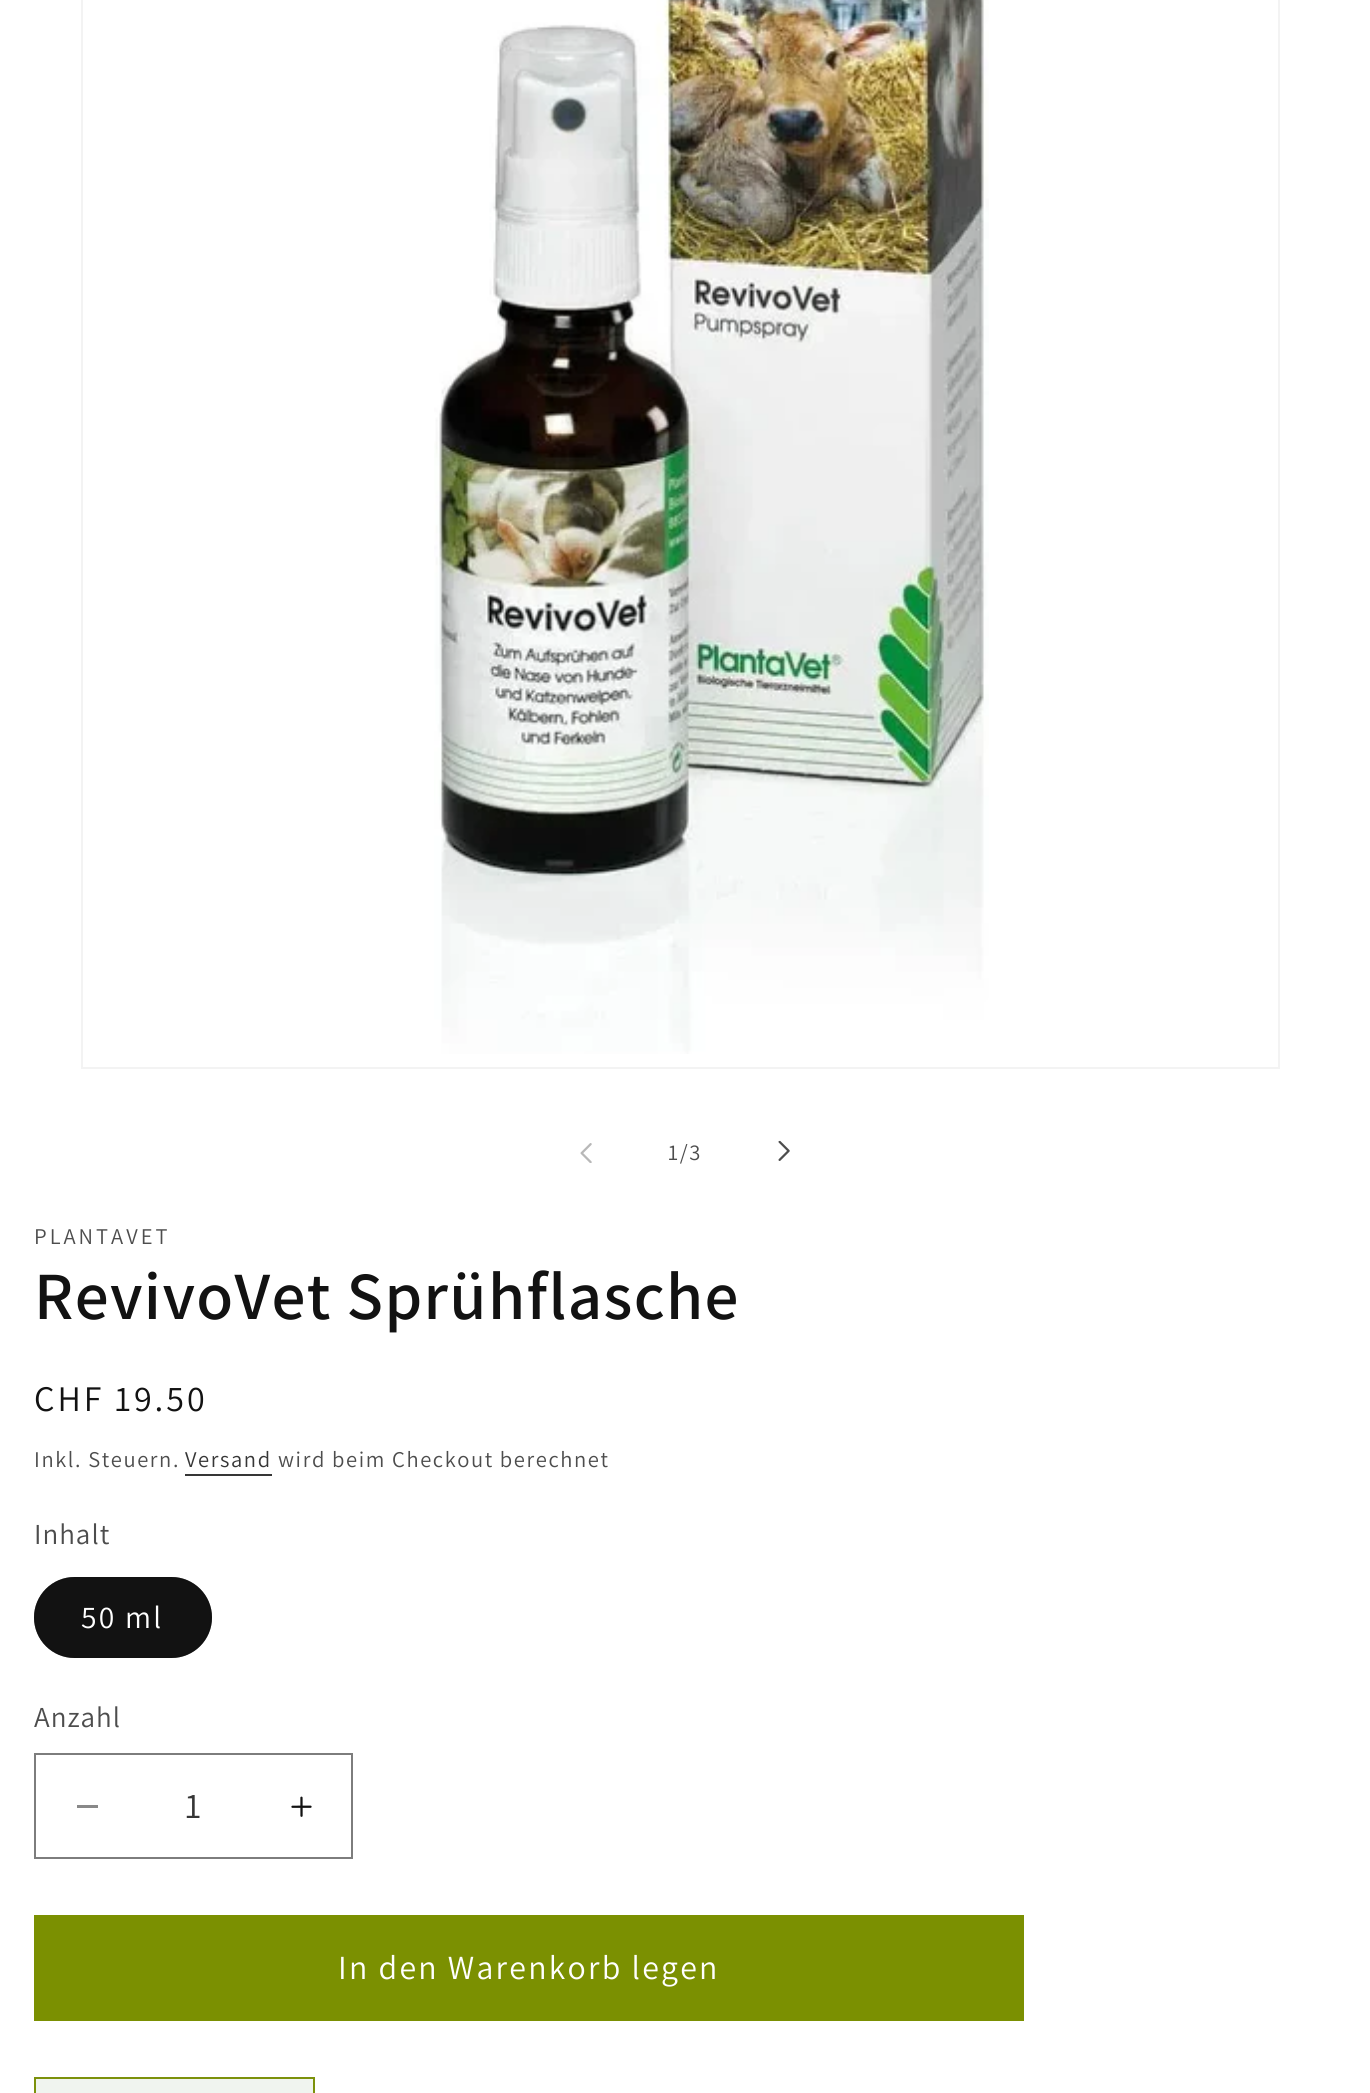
#include <cairo/cairo.h>
#include <math.h>
#include <stddef.h>

static cairo_t *cr;

static void use_color(int r, int g, int b) {
  cairo_set_source_rgb(cr, r / 255.0, g / 255.0, b / 255.0);
}

static void text(double x, double y, const char *s, const char *family, double size, int italic, int bold, int r, int g, int b) {
  cairo_select_font_face(cr, family, italic ? CAIRO_FONT_SLANT_ITALIC : CAIRO_FONT_SLANT_NORMAL,
    bold ? CAIRO_FONT_WEIGHT_BOLD : CAIRO_FONT_WEIGHT_NORMAL);
  cairo_set_font_size(cr, size);
  use_color(r, g, b);
  cairo_move_to(cr, x, y);
  cairo_show_text(cr, s);
}

static void spaced_text(double x, double y, const char *s, double letter, double word) {
  cairo_move_to(cr, x, y);
  while (*s) {
    char ch[5] = {0};
    int n = 0;
    do ch[n++] = *s++; while ((*s & 0xC0) == 0x80);
    cairo_show_text(cr, ch);
    cairo_rel_move_to(cr, letter + word * (*ch == ' '), 0);
  }
}

static void box(double x, double y, double w, double h, int r, int g, int b) {
  use_color(r, g, b);
  cairo_rectangle(cr, x, y, w, h);
  cairo_fill(cr);
}

static void round_rect(double x, double y, double w, double h, double r) {
  cairo_new_sub_path(cr);
  cairo_arc(cr, x + w - r, y + h - r, r, 0, M_PI / 2);
  cairo_arc(cr, x + r, y + h - r, r, M_PI / 2, M_PI);
  cairo_arc(cr, x + r, y + r, r, M_PI, 1.5 * M_PI);
  cairo_arc(cr, x + w - r, y + r, r, 1.5 * M_PI, 2 * M_PI);
  cairo_close_path(cr);
}

static void picture(const char *path, double x, double y, double w, double h) {
  cairo_surface_t *image = cairo_image_surface_create_from_png(path);
  cairo_save(cr);
  cairo_set_source_surface(cr, image, x, y);
  cairo_rectangle(cr, x, y, w, h);
  cairo_fill(cr);
  cairo_restore(cr);
  cairo_surface_destroy(image);
}

static void draw(void) {
  use_color(255, 255, 255);
  cairo_paint(cr);
  cairo_rectangle(cr, 82, -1, 1197, 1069);
  use_color(243, 243, 243);
  cairo_stroke(cr);
  picture("img_01.png", 434, 0, 555, 1054);
  picture("img_02.png", 580, 1143, 12, 20);
  picture("img_03.png", 778, 1140, 12, 21);
  box(185, 1474, 87, 2, 54, 54, 54);
  use_color(18, 18, 18);
  round_rect(34, 1577, 178, 81, 40.5);
  cairo_fill(cr);
  round_rect(35, 1578, 176, 79, 39.5);
  cairo_set_source_rgba(cr, 0.071, 0.071, 0.071, 0.55);
  cairo_stroke(cr);
  box(77, 1805, 21, 3, 137, 137, 137);
  picture("img_04.png", 291, 1796, 21, 21);
  cairo_rectangle(cr, 35, 1754, 317, 104);
  use_color(125, 125, 125);
  cairo_stroke(cr);
  box(34, 1915, 990, 106, 123, 144, 1);
  box(36, 2079, 277, 14, 240, 244, 239);
  box(34, 2077, 281, 2, 124, 145, 11);
  box(313, 2077, 2, 16, 124, 145, 11);
  box(34, 2077, 2, 16, 124, 145, 11);
  cairo_select_font_face(cr, "Assistant", CAIRO_FONT_SLANT_NORMAL, CAIRO_FONT_WEIGHT_NORMAL);
  cairo_set_font_size(cr, 22.5);
  use_color(77, 77, 77);
  spaced_text(668, 1160, "1/3", 1.6, 0);
  spaced_text(34, 1244, "PLANTAVET", 3, 0);
  cairo_select_font_face(cr, "Assistant SemiBold", CAIRO_FONT_SLANT_NORMAL, CAIRO_FONT_WEIGHT_NORMAL);
  cairo_set_font_size(cr, 67.5);
  use_color(18, 18, 18);
  spaced_text(34, 1319, "RevivoVet Sprühflasche", 1.35, 0);
  cairo_select_font_face(cr, "Assistant", CAIRO_FONT_SLANT_NORMAL, CAIRO_FONT_WEIGHT_NORMAL);
  cairo_set_font_size(cr, 36);
  spaced_text(34, 1411, "CHF 19.50", 3, 0);
  cairo_set_font_size(cr, 22.5);
  use_color(77, 77, 77);
  spaced_text(34, 1467, "Inkl. Steuern.", 1.6, 0);
  use_color(54, 54, 54);
  spaced_text(185, 1467, "Versand", 1.6, 0);
  use_color(77, 77, 77);
  spaced_text(278, 1467, "wird beim Checkout berechnet", 1.6, 0);
  cairo_set_font_size(cr, 29);
  spaced_text(34, 1544, "Inhalt", 1, 0);
  cairo_set_font_size(cr, 31.5);
  use_color(255, 255, 255);
  spaced_text(81, 1628, "50 ml", 2.25, 0);
  cairo_set_font_size(cr, 29);
  use_color(77, 77, 77);
  spaced_text(34, 1727, "Anzahl", 1, 0);
  text(185, 1818, "1", "Assistant", 36, 0, 0, 54, 54, 54);
  cairo_set_font_size(cr, 33.75);
  use_color(255, 255, 255);
  spaced_text(338, 1979, "In den Warenkorb legen", 2.25, 0);
}

int main(void) {
  cairo_surface_t *surface = cairo_image_surface_create(CAIRO_FORMAT_RGB24, 1370, 2093);
  cr = cairo_create(surface);
  cairo_font_options_t *options = cairo_font_options_create();
  cairo_font_options_set_hint_metrics(options, CAIRO_HINT_METRICS_OFF);
  cairo_font_options_set_hint_style(options, CAIRO_HINT_STYLE_NONE);
  cairo_set_font_options(cr, options);
  cairo_set_miter_limit(cr, 4);
  draw();
  cairo_surface_write_to_png(surface, "out.png");
  cairo_font_options_destroy(options);
  cairo_destroy(cr);
  cairo_surface_destroy(surface);
  return 0;
}
